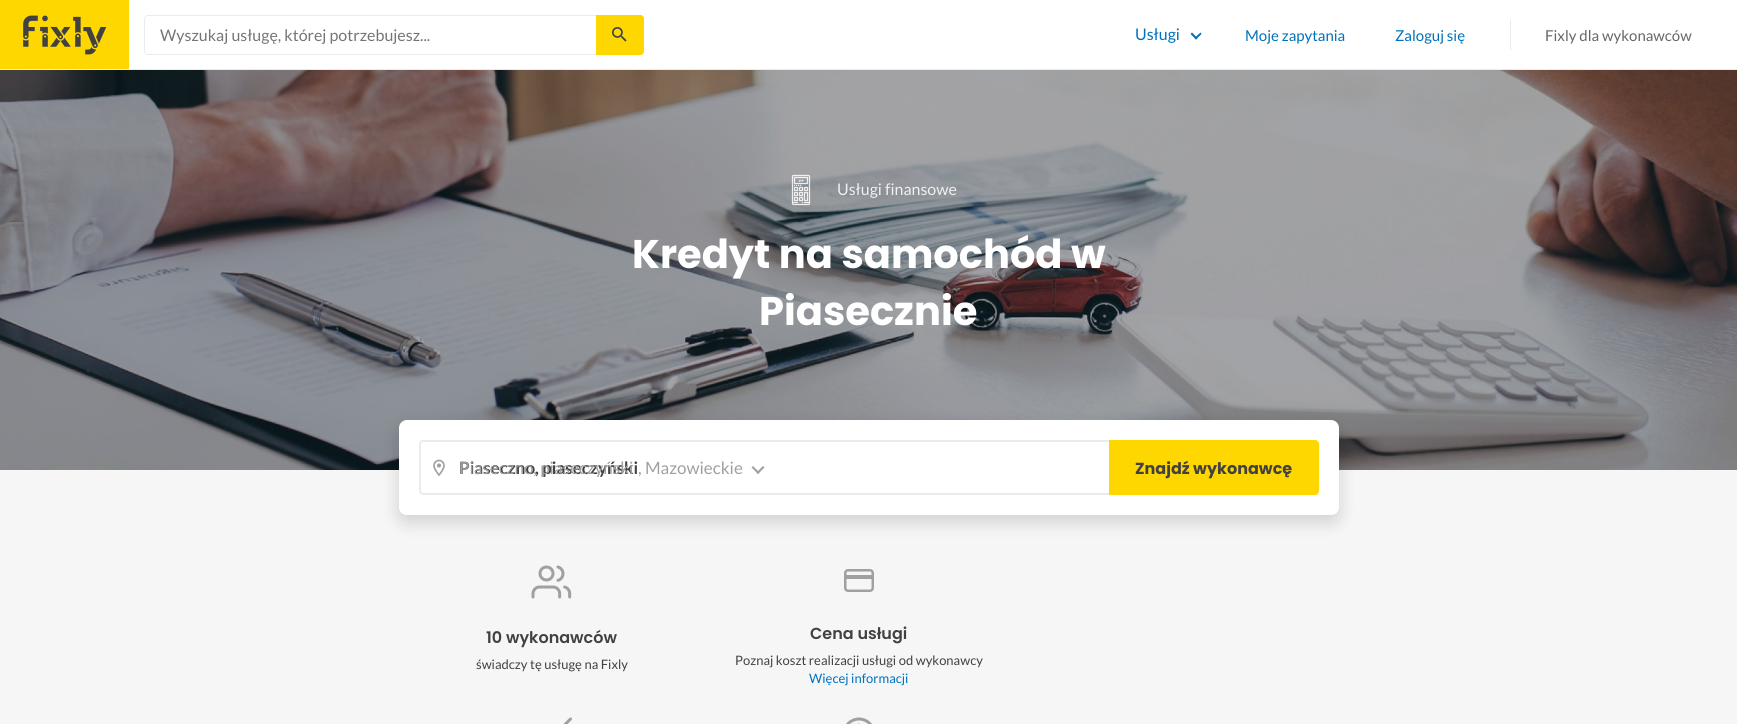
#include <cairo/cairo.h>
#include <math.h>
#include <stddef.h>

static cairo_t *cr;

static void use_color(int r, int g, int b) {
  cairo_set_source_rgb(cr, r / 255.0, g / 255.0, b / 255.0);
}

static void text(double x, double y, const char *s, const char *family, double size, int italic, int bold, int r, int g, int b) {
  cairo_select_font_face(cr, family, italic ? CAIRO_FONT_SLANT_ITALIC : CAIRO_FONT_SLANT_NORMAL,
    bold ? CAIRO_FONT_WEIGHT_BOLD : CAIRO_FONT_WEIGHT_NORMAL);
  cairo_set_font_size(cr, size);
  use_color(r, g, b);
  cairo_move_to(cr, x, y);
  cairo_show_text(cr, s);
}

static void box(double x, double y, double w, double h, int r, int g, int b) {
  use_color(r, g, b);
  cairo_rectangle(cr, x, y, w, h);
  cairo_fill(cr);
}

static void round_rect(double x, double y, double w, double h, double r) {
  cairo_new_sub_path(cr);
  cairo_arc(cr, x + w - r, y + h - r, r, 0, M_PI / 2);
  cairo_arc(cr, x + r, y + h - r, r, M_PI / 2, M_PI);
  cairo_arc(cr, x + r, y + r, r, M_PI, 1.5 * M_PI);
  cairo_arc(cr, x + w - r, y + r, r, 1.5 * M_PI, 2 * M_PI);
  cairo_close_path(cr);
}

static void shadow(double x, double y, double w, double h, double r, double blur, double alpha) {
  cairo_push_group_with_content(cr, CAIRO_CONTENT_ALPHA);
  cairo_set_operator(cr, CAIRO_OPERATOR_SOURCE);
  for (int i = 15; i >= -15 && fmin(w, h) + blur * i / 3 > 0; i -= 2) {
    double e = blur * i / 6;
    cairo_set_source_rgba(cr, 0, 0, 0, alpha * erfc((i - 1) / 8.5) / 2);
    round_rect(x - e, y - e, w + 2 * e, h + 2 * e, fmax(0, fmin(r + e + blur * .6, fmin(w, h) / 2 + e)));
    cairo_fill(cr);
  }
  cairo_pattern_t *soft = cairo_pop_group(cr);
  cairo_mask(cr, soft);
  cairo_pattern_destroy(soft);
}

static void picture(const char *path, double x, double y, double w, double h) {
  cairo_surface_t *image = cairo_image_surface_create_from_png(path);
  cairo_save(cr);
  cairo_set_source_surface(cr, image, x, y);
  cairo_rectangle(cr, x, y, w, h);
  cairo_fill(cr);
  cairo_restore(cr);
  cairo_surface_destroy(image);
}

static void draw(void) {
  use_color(255, 255, 255);
  cairo_paint(cr);
  box(0, 69, 1737, 1, 235, 235, 235);
  box(0, 0, 129, 69, 255, 215, 0);
  picture("img_01.png", 23, 15, 84, 40);
  cairo_new_path(cr);
  cairo_move_to(cr, 594, 15);
  cairo_line_to(cr, 640, 15);
  cairo_curve_to(cr, 642, 15, 644, 17, 644, 19);
  cairo_line_to(cr, 644, 51);
  cairo_curve_to(cr, 644, 53, 642, 55, 640, 55);
  cairo_line_to(cr, 594, 55);
  cairo_close_path(cr);
  cairo_fill(cr);
  picture("img_02.png", 612, 27, 15, 15);
  cairo_new_path(cr);
  cairo_move_to(cr, 594.5, 15.5);
  cairo_line_to(cr, 640, 15.5);
  cairo_curve_to(cr, 642, 15.5, 643.5, 17, 643.5, 19);
  cairo_line_to(cr, 643.5, 51);
  cairo_curve_to(cr, 643.5, 53, 642, 54.5, 640, 54.5);
  cairo_line_to(cr, 594.5, 54.5);
  cairo_close_path(cr);
  cairo_set_line_width(cr, 1);
  cairo_stroke(cr);
  use_color(255, 255, 255);
  cairo_new_path(cr);
  cairo_move_to(cr, 148, 16);
  cairo_line_to(cr, 596, 16);
  cairo_line_to(cr, 596, 54);
  cairo_line_to(cr, 148, 54);
  cairo_curve_to(cr, 146.5, 54, 145, 52.5, 145, 51);
  cairo_line_to(cr, 145, 19);
  cairo_curve_to(cr, 145, 17.5, 146.5, 16, 148, 16);
  cairo_close_path(cr);
  cairo_fill(cr);
  use_color(235, 235, 235);
  cairo_set_fill_rule(cr, CAIRO_FILL_RULE_EVEN_ODD);
  cairo_new_path(cr);
  cairo_move_to(cr, 148, 15);
  cairo_line_to(cr, 596, 15);
  cairo_line_to(cr, 596, 55);
  cairo_line_to(cr, 148, 55);
  cairo_curve_to(cr, 146, 55, 144, 53, 144, 51);
  cairo_line_to(cr, 144, 19);
  cairo_curve_to(cr, 144, 17, 146, 15, 148, 15);
  cairo_close_path(cr);
  cairo_move_to(cr, 148, 16);
  cairo_line_to(cr, 596, 16);
  cairo_line_to(cr, 596, 54);
  cairo_line_to(cr, 148, 54);
  cairo_curve_to(cr, 146, 54, 145, 53, 145, 51);
  cairo_line_to(cr, 145, 19);
  cairo_curve_to(cr, 145, 17, 146, 16, 148, 16);
  cairo_close_path(cr);
  cairo_fill(cr);
  use_color(0, 113, 188);
  cairo_set_fill_rule(cr, CAIRO_FILL_RULE_WINDING);
  cairo_new_path(cr);
  cairo_move_to(cr, 1200.5, 32.5);
  cairo_line_to(cr, 1201.5, 34);
  cairo_line_to(cr, 1196, 39.5);
  cairo_line_to(cr, 1194.5, 38);
  cairo_close_path(cr);
  cairo_fill(cr);
  cairo_new_path(cr);
  cairo_move_to(cr, 1192, 32.5);
  cairo_line_to(cr, 1197.5, 38);
  cairo_line_to(cr, 1196, 39.5);
  cairo_line_to(cr, 1190.5, 34);
  cairo_close_path(cr);
  cairo_fill(cr);
  box(1510, 20, 1, 30, 235, 235, 235);
  picture("img_03.png", 0, 70, 1737, 400);
  picture("img_04.png", 791, 174, 20, 32);
  box(0, 470, 1737, 254, 246, 246, 246);
  use_color(255, 255, 255);
  round_rect(399, 420, 940, 95, 8);
  cairo_fill(cr);
  cairo_save(cr);
  cairo_set_fill_rule(cr, CAIRO_FILL_RULE_EVEN_ODD);
  cairo_new_path(cr);
  cairo_move_to(cr, 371, 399);
  cairo_line_to(cr, 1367, 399);
  cairo_line_to(cr, 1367, 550);
  cairo_line_to(cr, 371, 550);
  cairo_close_path(cr);
  cairo_move_to(cr, 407, 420);
  cairo_line_to(cr, 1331, 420);
  cairo_curve_to(cr, 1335.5, 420, 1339, 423.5, 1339, 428);
  cairo_line_to(cr, 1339, 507);
  cairo_curve_to(cr, 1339, 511.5, 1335.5, 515, 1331, 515);
  cairo_line_to(cr, 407, 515);
  cairo_curve_to(cr, 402.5, 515, 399, 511.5, 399, 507);
  cairo_line_to(cr, 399, 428);
  cairo_curve_to(cr, 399, 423.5, 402.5, 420, 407, 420);
  cairo_close_path(cr);
  cairo_clip(cr);
  use_color(0, 0, 0);
  shadow(399, 427, 940, 95, 8, 9, 0.16);
  cairo_restore(cr);
  picture("img_05.png", 433, 459, 12, 18);
  use_color(255, 215, 0);
  cairo_new_path(cr);
  cairo_move_to(cr, 1109.5, 440.5);
  cairo_line_to(cr, 1315, 440.5);
  cairo_curve_to(cr, 1317, 440.5, 1318.5, 442, 1318.5, 444);
  cairo_line_to(cr, 1318.5, 491);
  cairo_curve_to(cr, 1318.5, 493, 1317, 494.5, 1315, 494.5);
  cairo_line_to(cr, 1109.5, 494.5);
  cairo_close_path(cr);
  cairo_fill_preserve(cr);
  cairo_stroke(cr);
  picture("img_06.png", 531, 565, 41, 34);
  round_rect(845.25, 570.25, 27.5, 20.5, 2.75);
  use_color(160, 160, 160);
  cairo_set_line_width(cr, 2.5);
  cairo_stroke(cr);
  box(845, 575, 27, 4, 160, 160, 160);
  cairo_new_path(cr);
  cairo_move_to(cr, 570.5, 719);
  cairo_line_to(cr, 545.5, 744);
  cairo_line_to(cr, 534, 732.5);
  cairo_set_line_width(cr, 3);
  cairo_set_line_cap(cr, CAIRO_LINE_CAP_ROUND);
  cairo_set_line_join(cr, CAIRO_LINE_JOIN_ROUND);
  cairo_stroke(cr);
  cairo_arc(cr, 859, 734, 15, 0, 2 * M_PI);
  cairo_set_line_cap(cr, CAIRO_LINE_CAP_BUTT);
  cairo_set_line_join(cr, CAIRO_LINE_JOIN_MITER);
  cairo_stroke(cr);
  cairo_new_path(cr);
  cairo_move_to(cr, 859, 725);
  cairo_line_to(cr, 859, 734);
  cairo_line_to(cr, 863.5, 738.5);
  cairo_set_line_cap(cr, CAIRO_LINE_CAP_ROUND);
  cairo_set_line_join(cr, CAIRO_LINE_JOIN_ROUND);
  cairo_stroke(cr);
  text(160, 41, "Wyszukaj usługę, której potrzebujesz...", "Lato", 16, 0, 0, 117, 117, 117);
  text(1135, 40, "Usługi", "Lato", 16, 0, 0, 0, 113, 188);
  text(1245, 41, "Moje zapytania", "Lato", 15, 0, 0, 0, 113, 188);
  text(1395, 41, "Zaloguj się", "Lato", 15, 0, 0, 0, 113, 188);
  text(1545, 41, "Fixly dla wykonawców", "Lato", 15, 0, 0, 103, 103, 103);
  text(837, 195, "Usługi finansowe", "Lato", 16, 0, 0, 238, 239, 240);
  text(632, 268, "Kredyt na samochód w", "Poppins", 40, 0, 1, 255, 255, 255);
  text(759, 325, "Piasecznie", "Poppins", 40, 0, 1, 255, 255, 255);
  text(459, 474, "Piaseczno, piaseczyński", "Lato", 17, 0, 1, 65, 65, 65);
  text(638, 474, ", Mazowieckie", "Lato", 17, 0, 0, 160, 160, 160);
  use_color(235, 235, 235);
  cairo_set_fill_rule(cr, CAIRO_FILL_RULE_EVEN_ODD);
  cairo_new_path(cr);
  cairo_move_to(cr, 423, 440);
  cairo_line_to(cr, 1109, 440);
  cairo_line_to(cr, 1109, 495);
  cairo_line_to(cr, 423, 495);
  cairo_curve_to(cr, 421, 495, 419, 493, 419, 491);
  cairo_line_to(cr, 419, 444);
  cairo_curve_to(cr, 419, 442, 421, 440, 423, 440);
  cairo_close_path(cr);
  cairo_move_to(cr, 423, 442);
  cairo_line_to(cr, 1109, 442);
  cairo_line_to(cr, 1109, 493);
  cairo_line_to(cr, 423, 493);
  cairo_curve_to(cr, 422, 493, 421, 492, 421, 491);
  cairo_line_to(cr, 421, 444);
  cairo_curve_to(cr, 421, 443, 422, 442, 423, 442);
  cairo_close_path(cr);
  cairo_fill(cr);
  use_color(160, 160, 160);
  cairo_set_fill_rule(cr, CAIRO_FILL_RULE_WINDING);
  cairo_new_path(cr);
  cairo_move_to(cr, 763, 466);
  cairo_line_to(cr, 764.5, 467.5);
  cairo_line_to(cr, 758, 474);
  cairo_line_to(cr, 756.5, 472.5);
  cairo_close_path(cr);
  cairo_fill(cr);
  cairo_new_path(cr);
  cairo_move_to(cr, 753, 466);
  cairo_line_to(cr, 759.5, 472.5);
  cairo_line_to(cr, 758, 474);
  cairo_line_to(cr, 751.5, 467.5);
  cairo_close_path(cr);
  cairo_fill(cr);
  text(459, 474, "Piaseczno, piaseczyński", "Lato", 17, 0, 0, 160, 160, 160);
  text(1135, 474, "Znajdź wykonawcę", "Poppins", 16, 0, 1, 65, 65, 65);
  text(486, 643, "10 wykonawców", "Poppins SemiBold", 16, 0, 0, 65, 65, 65);
  text(476, 669, "świadczy tę usługę na Fixly", "Lato", 13, 0, 0, 65, 65, 65);
  text(810, 639, "Cena usługi", "Poppins SemiBold", 16, 0, 0, 65, 65, 65);
  text(735, 665, "Poznaj koszt realizacji usługi od wykonawcy", "Lato", 13, 0, 0, 65, 65, 65);
  text(809, 683, "Więcej informacji", "Lato", 13, 0, 0, 0, 113, 188);
}

int main(void) {
  cairo_surface_t *surface = cairo_image_surface_create(CAIRO_FORMAT_RGB24, 1737, 724);
  cr = cairo_create(surface);
  cairo_font_options_t *options = cairo_font_options_create();
  cairo_font_options_set_hint_metrics(options, CAIRO_HINT_METRICS_OFF);
  cairo_font_options_set_hint_style(options, CAIRO_HINT_STYLE_NONE);
  cairo_set_font_options(cr, options);
  cairo_set_miter_limit(cr, 4);
  draw();
  cairo_surface_write_to_png(surface, "out.png");
  cairo_font_options_destroy(options);
  cairo_destroy(cr);
  cairo_surface_destroy(surface);
  return 0;
}
